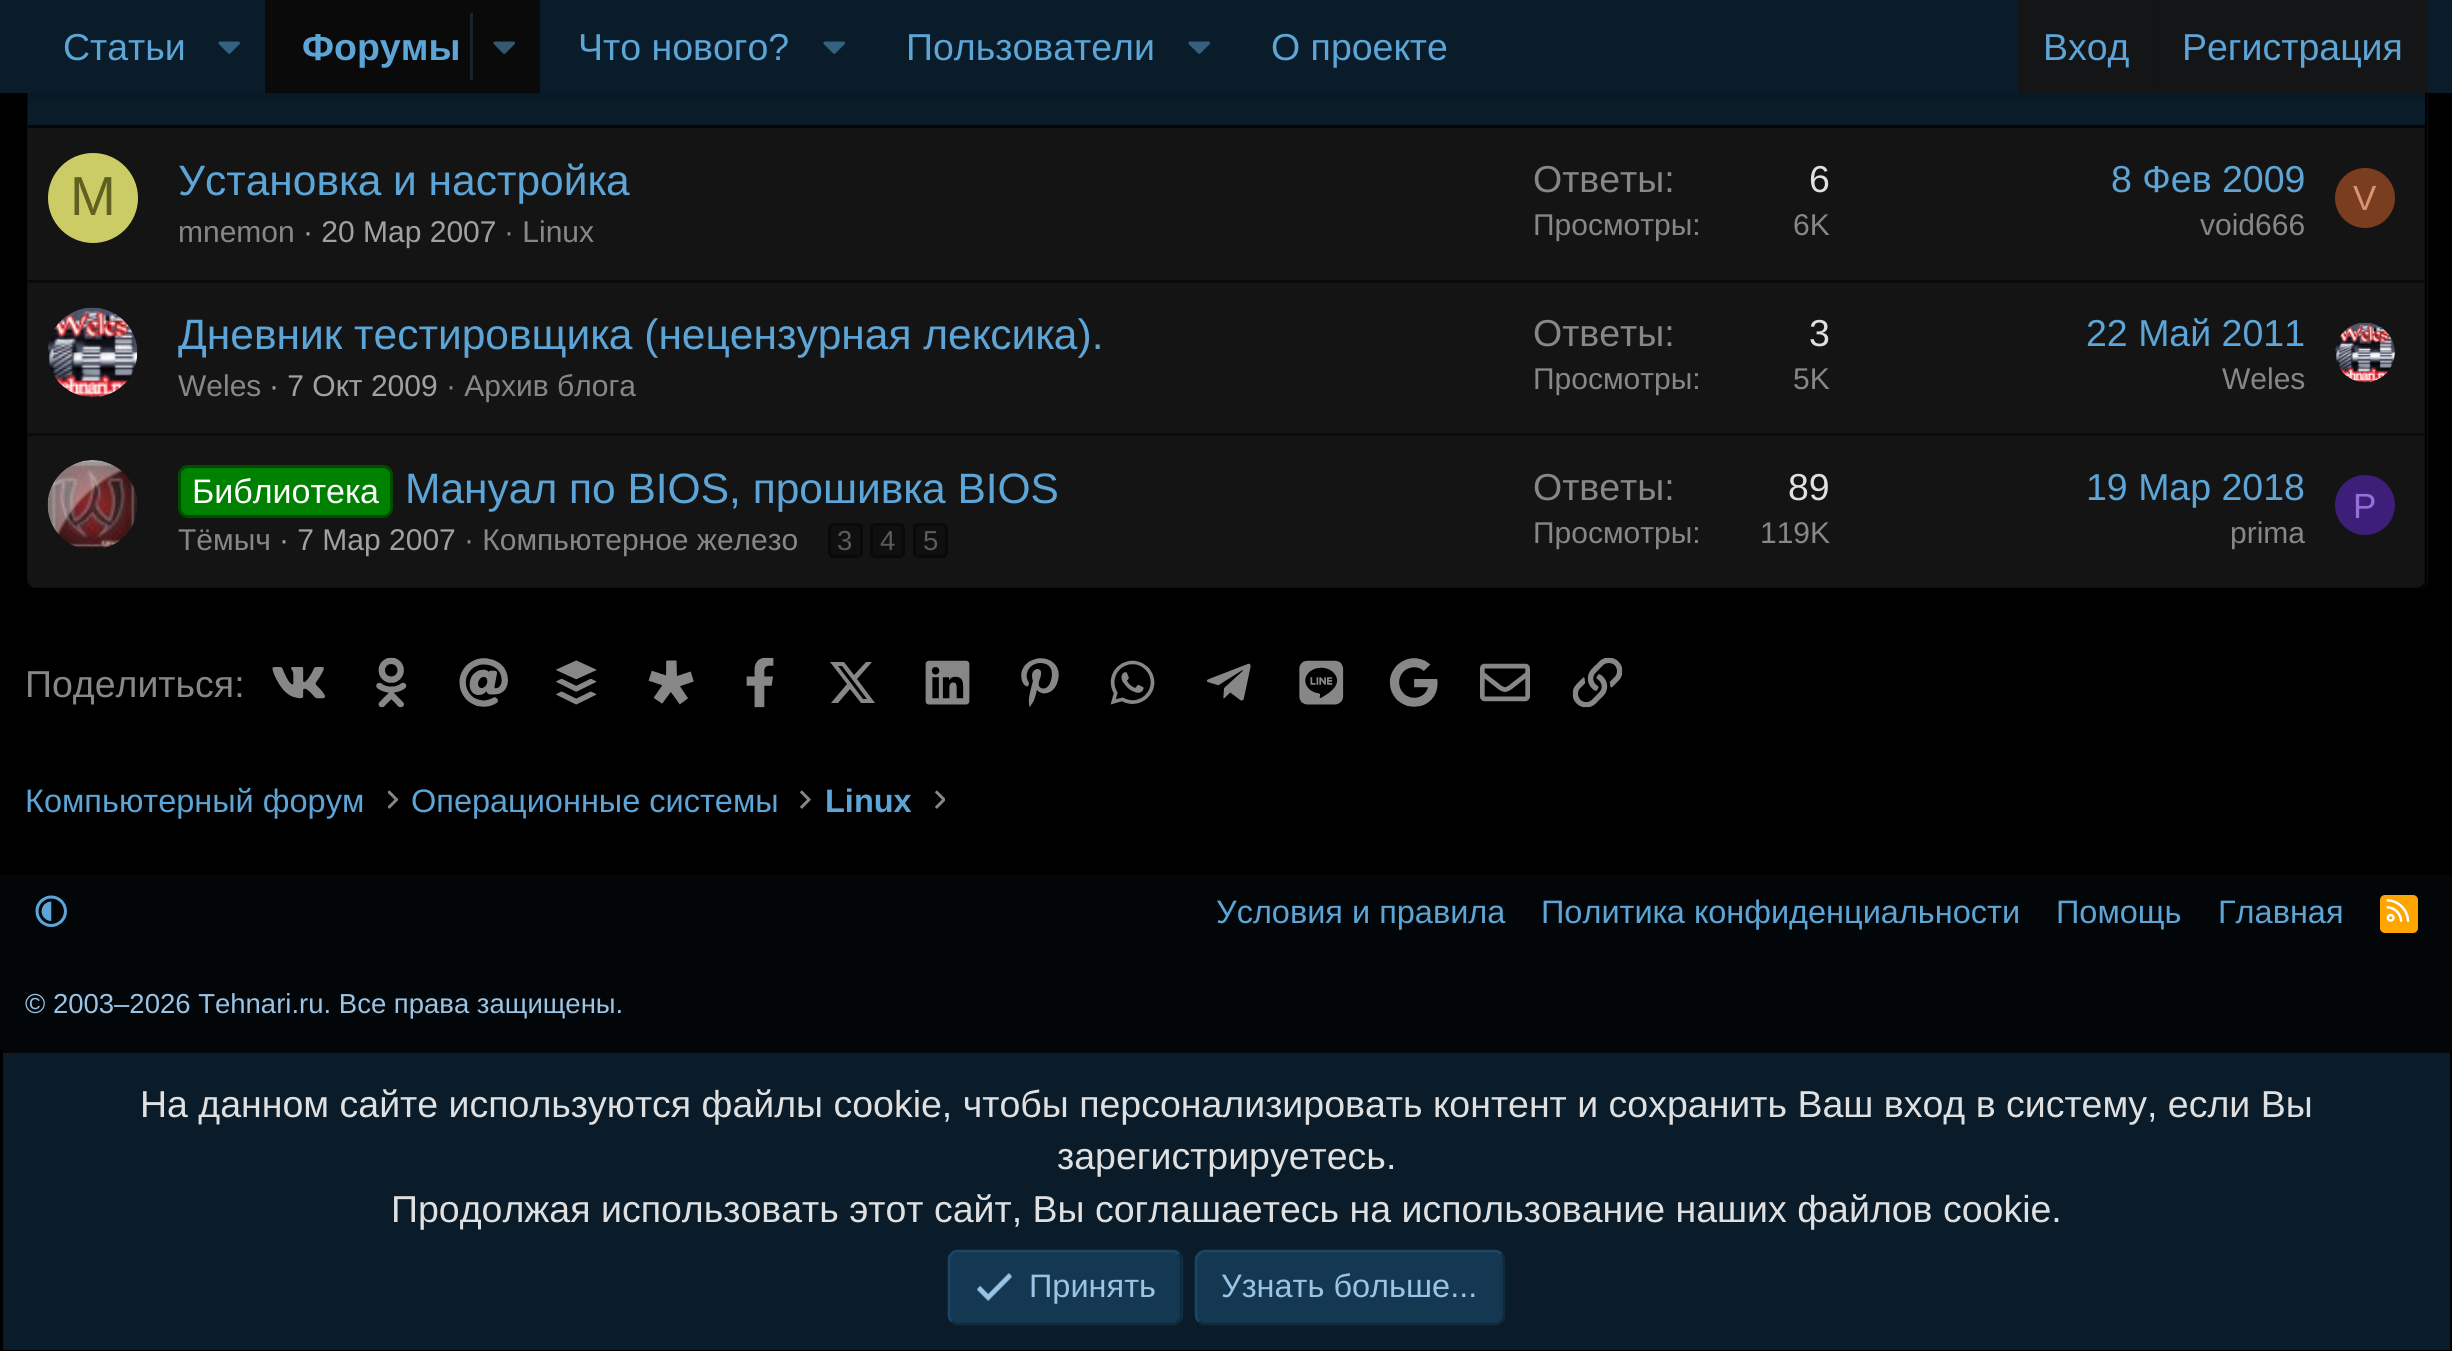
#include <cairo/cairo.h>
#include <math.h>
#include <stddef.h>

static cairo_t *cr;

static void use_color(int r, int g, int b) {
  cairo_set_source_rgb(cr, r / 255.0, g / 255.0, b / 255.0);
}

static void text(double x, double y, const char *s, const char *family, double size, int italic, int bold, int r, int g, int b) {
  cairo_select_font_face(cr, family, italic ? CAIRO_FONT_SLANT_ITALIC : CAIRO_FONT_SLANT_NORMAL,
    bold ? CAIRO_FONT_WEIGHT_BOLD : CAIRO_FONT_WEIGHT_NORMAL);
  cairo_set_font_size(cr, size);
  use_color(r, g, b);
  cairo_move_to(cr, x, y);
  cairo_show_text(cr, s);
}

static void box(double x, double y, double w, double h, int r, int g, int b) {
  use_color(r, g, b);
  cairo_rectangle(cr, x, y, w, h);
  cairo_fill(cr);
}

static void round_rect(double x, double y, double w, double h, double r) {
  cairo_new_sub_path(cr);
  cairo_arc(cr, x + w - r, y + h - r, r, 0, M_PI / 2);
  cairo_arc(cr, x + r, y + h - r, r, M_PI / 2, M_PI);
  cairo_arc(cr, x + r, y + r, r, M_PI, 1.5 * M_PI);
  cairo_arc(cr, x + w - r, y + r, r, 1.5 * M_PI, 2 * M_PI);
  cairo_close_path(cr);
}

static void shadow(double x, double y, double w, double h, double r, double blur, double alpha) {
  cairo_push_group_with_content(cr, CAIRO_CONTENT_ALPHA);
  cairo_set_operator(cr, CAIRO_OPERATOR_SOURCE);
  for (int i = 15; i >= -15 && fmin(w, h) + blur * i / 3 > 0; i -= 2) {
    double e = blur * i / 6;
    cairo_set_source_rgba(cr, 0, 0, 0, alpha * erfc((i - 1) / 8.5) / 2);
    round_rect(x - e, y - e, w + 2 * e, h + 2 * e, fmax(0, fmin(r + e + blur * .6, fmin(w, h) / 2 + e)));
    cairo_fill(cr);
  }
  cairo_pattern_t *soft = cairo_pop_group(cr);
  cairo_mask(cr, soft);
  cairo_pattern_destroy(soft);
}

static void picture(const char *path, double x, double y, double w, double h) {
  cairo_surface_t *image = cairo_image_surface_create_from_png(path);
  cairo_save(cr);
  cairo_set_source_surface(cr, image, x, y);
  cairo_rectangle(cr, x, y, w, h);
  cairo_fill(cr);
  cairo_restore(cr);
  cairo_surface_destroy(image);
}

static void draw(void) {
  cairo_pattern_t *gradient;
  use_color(0, 0, 0);
  cairo_paint(cr);
  use_color(20, 20, 20);
  round_rect(25, 23, 2403, 567, 10);
  cairo_fill(cr);
  cairo_new_path(cr);
  cairo_move_to(cr, 2423.5, 26.5);
  cairo_curve_to(cr, 2425.5, 28, 2426, 30, 2426, 32.5);
  cairo_line_to(cr, 2426, 580);
  cairo_curve_to(cr, 2426, 582.5, 2425.5, 584.5, 2423.5, 586);
  cairo_curve_to(cr, 2422, 588, 2420, 589, 2417.5, 589);
  cairo_line_to(cr, 35, 589);
  cairo_curve_to(cr, 32.5, 589, 30.5, 588, 29, 586);
  cairo_curve_to(cr, 27, 584.5, 26, 582.5, 26, 580);
  cairo_line_to(cr, 26, 32.5);
  cairo_curve_to(cr, 26, 30, 27, 28, 29, 26.5);
  use_color(0, 0, 0);
  cairo_set_line_width(cr, 2.5);
  cairo_stroke(cr);
  gradient = cairo_pattern_create_linear(1226, 125, 1226, 25);
  cairo_pattern_add_color_stop_rgba(gradient, 0, 0.039, 0.11, 0.161, 1);
  cairo_pattern_add_color_stop_rgba(gradient, 1, 0.059, 0.165, 0.239, 1);
  cairo_set_source(cr, gradient);
  cairo_pattern_destroy(gradient);
  cairo_rectangle(cr, 28, 93, 2397, 32);
  cairo_fill(cr);
  box(28, 125, 2397, 3, 5, 5, 5);
  use_color(0, 0, 0);
  shadow(-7, -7, 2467, 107, 0, 10, 0.3);
  box(0, 0, 2452, 93, 10, 28, 41);
  picture("img_01.png", 218, 41, 22, 13);
  box(265, 0, 275, 93, 10, 10, 10);
  box(470, 13, 3, 67, 24, 37, 46);
  picture("img_02.png", 493, 41, 22, 13);
  picture("img_01.png", 823, 41, 22, 13);
  picture("img_01.png", 1188, 41, 22, 13);
  box(2018, 0, 410, 93, 19, 21, 23);
  box(2155, 0, 3, 93, 20, 20, 20);
  use_color(204, 204, 102);
  cairo_arc(cr, 93, 198, 45, 0, 2 * M_PI);
  cairo_fill(cr);
  use_color(122, 61, 31);
  cairo_arc(cr, 2365, 198, 30, 0, 2 * M_PI);
  cairo_fill(cr);
  box(28, 280, 2397, 3, 10, 10, 10);
  picture("img_03.png", 48, 307, 90, 91);
  picture("img_04.png", 2335, 322, 60, 61);
  box(28, 433, 2397, 3, 10, 10, 10);
  picture("img_05.png", 47, 460, 90, 90);
  use_color(0, 128, 0);
  round_rect(179.5, 466.5, 212, 50, 8.5);
  cairo_fill_preserve(cr);
  use_color(0, 77, 0);
  cairo_set_line_width(cr, 3);
  cairo_stroke(cr);
  use_color(15, 15, 15);
  round_rect(829.5, 524.5, 32, 32, 3.5);
  cairo_fill_preserve(cr);
  use_color(10, 10, 10);
  cairo_stroke(cr);
  use_color(15, 15, 15);
  round_rect(871.5, 524.5, 32, 32, 3.5);
  cairo_fill_preserve(cr);
  use_color(10, 10, 10);
  cairo_stroke(cr);
  use_color(15, 15, 15);
  round_rect(914.5, 524.5, 32, 32, 3.5);
  cairo_fill_preserve(cr);
  use_color(10, 10, 10);
  cairo_stroke(cr);
  use_color(61, 31, 122);
  cairo_arc(cr, 2365, 505, 30, 0, 2 * M_PI);
  cairo_fill(cr);
  picture("img_06.png", 272, 667, 53, 32);
  picture("img_07.png", 376, 657, 31, 51);
  picture("img_08.png", 459, 658, 49, 49);
  picture("img_09.png", 556, 660, 41, 45);
  picture("img_10.png", 648, 660, 46, 45);
  picture("img_11.png", 746, 657, 28, 51);
  use_color(135, 135, 135);
  cairo_new_path(cr);
  cairo_move_to(cr, 866, 662);
  cairo_line_to(cr, 872, 662);
  cairo_line_to(cr, 857, 679);
  cairo_line_to(cr, 875, 703);
  cairo_line_to(cr, 861, 703);
  cairo_line_to(cr, 850, 689);
  cairo_line_to(cr, 838, 703);
  cairo_line_to(cr, 831, 703);
  cairo_line_to(cr, 847, 684);
  cairo_line_to(cr, 830, 662);
  cairo_line_to(cr, 844, 662);
  cairo_line_to(cr, 854, 675);
  cairo_close_path(cr);
  cairo_move_to(cr, 863, 699);
  cairo_line_to(cr, 867, 699);
  cairo_line_to(cr, 842, 666);
  cairo_line_to(cr, 838, 666);
  cairo_close_path(cr);
  cairo_fill(cr);
  picture("img_12.png", 925, 660, 45, 45);
  picture("img_13.png", 1021, 658, 38, 49);
  picture("img_14.png", 1110, 660, 45, 45);
  picture("img_15.png", 1206, 663, 45, 38);
  picture("img_16.png", 1299, 660, 45, 45);
  picture("img_17.png", 1389, 658, 49, 49);
  picture("img_18.png", 1480, 663, 50, 39);
  picture("img_19.png", 1572, 657, 51, 51);
  picture("img_20.png", 388, 790, 10, 19);
  picture("img_21.png", 800, 790, 11, 19);
  picture("img_22.png", 935, 790, 10, 19);
  box(0, 875, 2452, 175, 2, 6, 8);
  picture("img_23.png", 35, 895, 32, 32);
  use_color(255, 165, 0);
  round_rect(2380, 895, 38, 38, 5);
  cairo_fill(cr);
  picture("img_24.png", 2386, 899, 24, 23);
  box(3, 1053, 2447, 297, 10, 28, 41);
  box(0, 1050, 2452, 3, 5, 5, 5);
  box(2450, 1050, 2, 3, 0, 0, 0);
  box(0, 1050, 3, 3, 0, 0, 0);
  use_color(20, 56, 82);
  round_rect(948, 1250, 235, 75, 10);
  cairo_fill(cr);
  cairo_new_path(cr);
  cairo_move_to(cr, 1178.5, 1254);
  cairo_curve_to(cr, 1180.5, 1255.5, 1181, 1257.5, 1181, 1260);
  cairo_line_to(cr, 1181, 1315);
  cairo_curve_to(cr, 1181, 1317.5, 1180.5, 1319.5, 1178.5, 1321);
  cairo_curve_to(cr, 1177, 1323, 1175, 1324, 1172.5, 1324);
  cairo_line_to(cr, 957.5, 1324);
  cairo_curve_to(cr, 955, 1324, 953, 1323, 951.5, 1321);
  use_color(15, 42, 61);
  cairo_set_line_width(cr, 2.5);
  cairo_stroke(cr);
  cairo_new_path(cr);
  cairo_move_to(cr, 951.5, 1321);
  cairo_curve_to(cr, 949.5, 1319.5, 949, 1317.5, 949, 1315);
  cairo_line_to(cr, 949, 1260);
  cairo_curve_to(cr, 949, 1257.5, 949.5, 1255.5, 951.5, 1254);
  cairo_curve_to(cr, 953, 1252, 955, 1251, 957.5, 1251);
  cairo_line_to(cr, 1172.5, 1251);
  cairo_curve_to(cr, 1175, 1251, 1177, 1252, 1178.5, 1254);
  use_color(26, 70, 102);
  cairo_stroke(cr);
  picture("img_25.png", 977, 1273, 35, 28);
  use_color(20, 56, 82);
  round_rect(1195, 1250, 310, 75, 10);
  cairo_fill(cr);
  cairo_new_path(cr);
  cairo_move_to(cr, 1501, 1254);
  cairo_curve_to(cr, 1503, 1255.5, 1504, 1257.5, 1504, 1260);
  cairo_line_to(cr, 1504, 1315);
  cairo_curve_to(cr, 1504, 1317.5, 1503, 1319.5, 1501, 1321);
  cairo_curve_to(cr, 1499.5, 1323, 1497.5, 1324, 1495, 1324);
  cairo_line_to(cr, 1205, 1324);
  cairo_curve_to(cr, 1202.5, 1324, 1200.5, 1323, 1199, 1321);
  use_color(15, 42, 61);
  cairo_stroke(cr);
  cairo_new_path(cr);
  cairo_move_to(cr, 1199, 1321);
  cairo_curve_to(cr, 1197, 1319.5, 1196, 1317.5, 1196, 1315);
  cairo_line_to(cr, 1196, 1260);
  cairo_curve_to(cr, 1196, 1257.5, 1197, 1255.5, 1199, 1254);
  cairo_curve_to(cr, 1200.5, 1252, 1202.5, 1251, 1205, 1251);
  cairo_line_to(cr, 1495, 1251);
  cairo_curve_to(cr, 1497.5, 1251, 1499.5, 1252, 1501, 1254);
  use_color(26, 70, 102);
  cairo_stroke(cr);
  text(63, 60, "Статьи", "Liberation Sans", 37.5, 0, 0, 92, 165, 214);
  text(302, 60, "Форумы", "Liberation Sans", 37.5, 0, 1, 92, 165, 214);
  text(578, 60, "Что нового?", "Liberation Sans", 37.5, 0, 0, 92, 165, 214);
  text(906, 60, "Пользователи", "Liberation Sans", 37.5, 0, 0, 92, 165, 214);
  text(1271, 60, "О проекте", "Liberation Sans", 37.5, 0, 0, 92, 165, 214);
  text(2043, 60, "Вход", "Liberation Sans", 37.5, 0, 0, 92, 165, 214);
  text(2182, 60, "Регистрация", "Liberation Sans", 37.5, 0, 0, 92, 165, 214);
  text(70, 215, "M", "Liberation Sans", 55, 0, 0, 96, 96, 32);
  text(178, 195, "Установка и настройка", "Liberation Sans", 42.5, 0, 0, 92, 165, 214);
  text(178, 242, "mnemon", "Liberation Sans", 30, 0, 0, 135, 135, 135);
  text(303, 242, "· 20 Мар 2007", "Liberation Sans", 30, 0, 0, 161, 161, 161);
  text(504, 242, "· Linux", "Liberation Sans", 30, 0, 0, 135, 135, 135);
  text(1533, 192, "Ответы:", "Liberation Sans", 37.5, 0, 0, 135, 135, 135);
  text(1809, 192, "6", "Liberation Sans", 37.5, 0, 0, 224, 224, 224);
  text(1533, 235, "Просмотры:", "Liberation Sans", 30, 0, 0, 135, 135, 135);
  text(1793, 235, "6K", "Liberation Sans", 30, 0, 0, 135, 135, 135);
  text(2111, 192, "8 Фев 2009", "Liberation Sans", 37.5, 0, 0, 92, 165, 214);
  text(2200, 235, "void666", "Liberation Sans", 30, 0, 0, 135, 135, 135);
  text(2353, 210, "V", "Liberation Sans", 35, 0, 0, 219, 148, 112);
  text(178, 349, "Дневник тестировщика (нецензурная лексика).", "Liberation Sans", 42.5, 0, 0, 92, 165, 214);
  text(178, 396, "Weles", "Liberation Sans", 30, 0, 0, 135, 135, 135);
  text(269, 396, "· 7 Окт 2009", "Liberation Sans", 30, 0, 0, 161, 161, 161);
  text(446, 396, "· Архив блога", "Liberation Sans", 30, 0, 0, 135, 135, 135);
  text(1533, 346, "Ответы:", "Liberation Sans", 37.5, 0, 0, 135, 135, 135);
  text(1809, 346, "3", "Liberation Sans", 37.5, 0, 0, 224, 224, 224);
  text(1533, 389, "Просмотры:", "Liberation Sans", 30, 0, 0, 135, 135, 135);
  text(1793, 389, "5K", "Liberation Sans", 30, 0, 0, 135, 135, 135);
  text(2086, 346, "22 Май 2011", "Liberation Sans", 37.5, 0, 0, 92, 165, 214);
  text(2222, 389, "Weles", "Liberation Sans", 30, 0, 0, 135, 135, 135);
  text(192, 503, "Библиотека", "Liberation Sans", 34, 0, 0, 255, 255, 255);
  text(405, 503, "Мануал по BIOS, прошивка BIOS", "Liberation Sans", 42.5, 0, 0, 92, 165, 214);
  text(178, 550, "Тёмыч", "Liberation Sans", 30, 0, 0, 135, 135, 135);
  text(279, 550, "· 7 Мар 2007", "Liberation Sans", 30, 0, 0, 161, 161, 161);
  text(464, 550, "· Компьютерное железо", "Liberation Sans", 30, 0, 0, 135, 135, 135);
  text(837, 550, "3", "Liberation Sans", 27.5, 0, 0, 91, 91, 91);
  text(880, 550, "4", "Liberation Sans", 27.5, 0, 0, 91, 91, 91);
  text(923, 550, "5", "Liberation Sans", 27.5, 0, 0, 91, 91, 91);
  text(1533, 500, "Ответы:", "Liberation Sans", 37.5, 0, 0, 135, 135, 135);
  text(1788, 500, "89", "Liberation Sans", 37.5, 0, 0, 224, 224, 224);
  text(1533, 543, "Просмотры:", "Liberation Sans", 30, 0, 0, 135, 135, 135);
  text(1760, 543, "119K", "Liberation Sans", 30, 0, 0, 135, 135, 135);
  text(2086, 500, "19 Мар 2018", "Liberation Sans", 37.5, 0, 0, 92, 165, 214);
  text(2230, 543, "prima", "Liberation Sans", 30, 0, 0, 135, 135, 135);
  text(2353, 518, "P", "Liberation Sans", 35, 0, 0, 148, 112, 219);
  text(25, 697, "Поделиться:", "Liberation Sans", 37.5, 0, 0, 135, 135, 135);
  text(25, 812, "Компьютерный форум", "Liberation Sans", 32.5, 0, 0, 92, 165, 214);
  text(411, 812, "Операционные системы", "Liberation Sans", 32.5, 0, 0, 92, 165, 214);
  text(825, 812, "Linux", "Liberation Sans", 32.5, 0, 1, 92, 165, 214);
  text(1216, 923, "Условия и правила", "Liberation Sans", 32.5, 0, 0, 92, 165, 214);
  text(1541, 923, "Политика конфиденциальности", "Liberation Sans", 32.5, 0, 0, 92, 165, 214);
  text(2056, 923, "Помощь", "Liberation Sans", 32.5, 0, 0, 92, 165, 214);
  text(2218, 923, "Главная", "Liberation Sans", 32.5, 0, 0, 92, 165, 214);
  text(25, 1013, "© 2003–2026 Tehnari.ru. Все права защищены.", "Liberation Sans", 27.5, 0, 0, 153, 196, 230);
  text(140, 1117, "На данном сайте используются файлы cookie, чтобы персонализировать контент и сохранить Ваш вход в систему, если Вы", "Liberation Sans", 37.5, 0, 0, 224, 224, 224);
  text(1057, 1169, "зарегистрируетесь.", "Liberation Sans", 37.5, 0, 0, 224, 224, 224);
  text(391, 1222, "Продолжая использовать этот сайт, Вы соглашаетесь на использование наших файлов cookie.", "Liberation Sans", 37.5, 0, 0, 224, 224, 224);
  text(1029, 1297, "Принять", "Liberation Sans", 32.5, 0, 0, 153, 196, 230);
  text(1221, 1297, "Узнать больше...", "Liberation Sans", 32.5, 0, 0, 153, 196, 230);
}

int main(void) {
  cairo_surface_t *surface = cairo_image_surface_create(CAIRO_FORMAT_RGB24, 2452, 1351);
  cr = cairo_create(surface);
  cairo_font_options_t *options = cairo_font_options_create();
  cairo_font_options_set_hint_metrics(options, CAIRO_HINT_METRICS_OFF);
  cairo_font_options_set_hint_style(options, CAIRO_HINT_STYLE_NONE);
  cairo_set_font_options(cr, options);
  cairo_set_miter_limit(cr, 4);
  draw();
  cairo_surface_write_to_png(surface, "out.png");
  cairo_font_options_destroy(options);
  cairo_destroy(cr);
  cairo_surface_destroy(surface);
  return 0;
}
